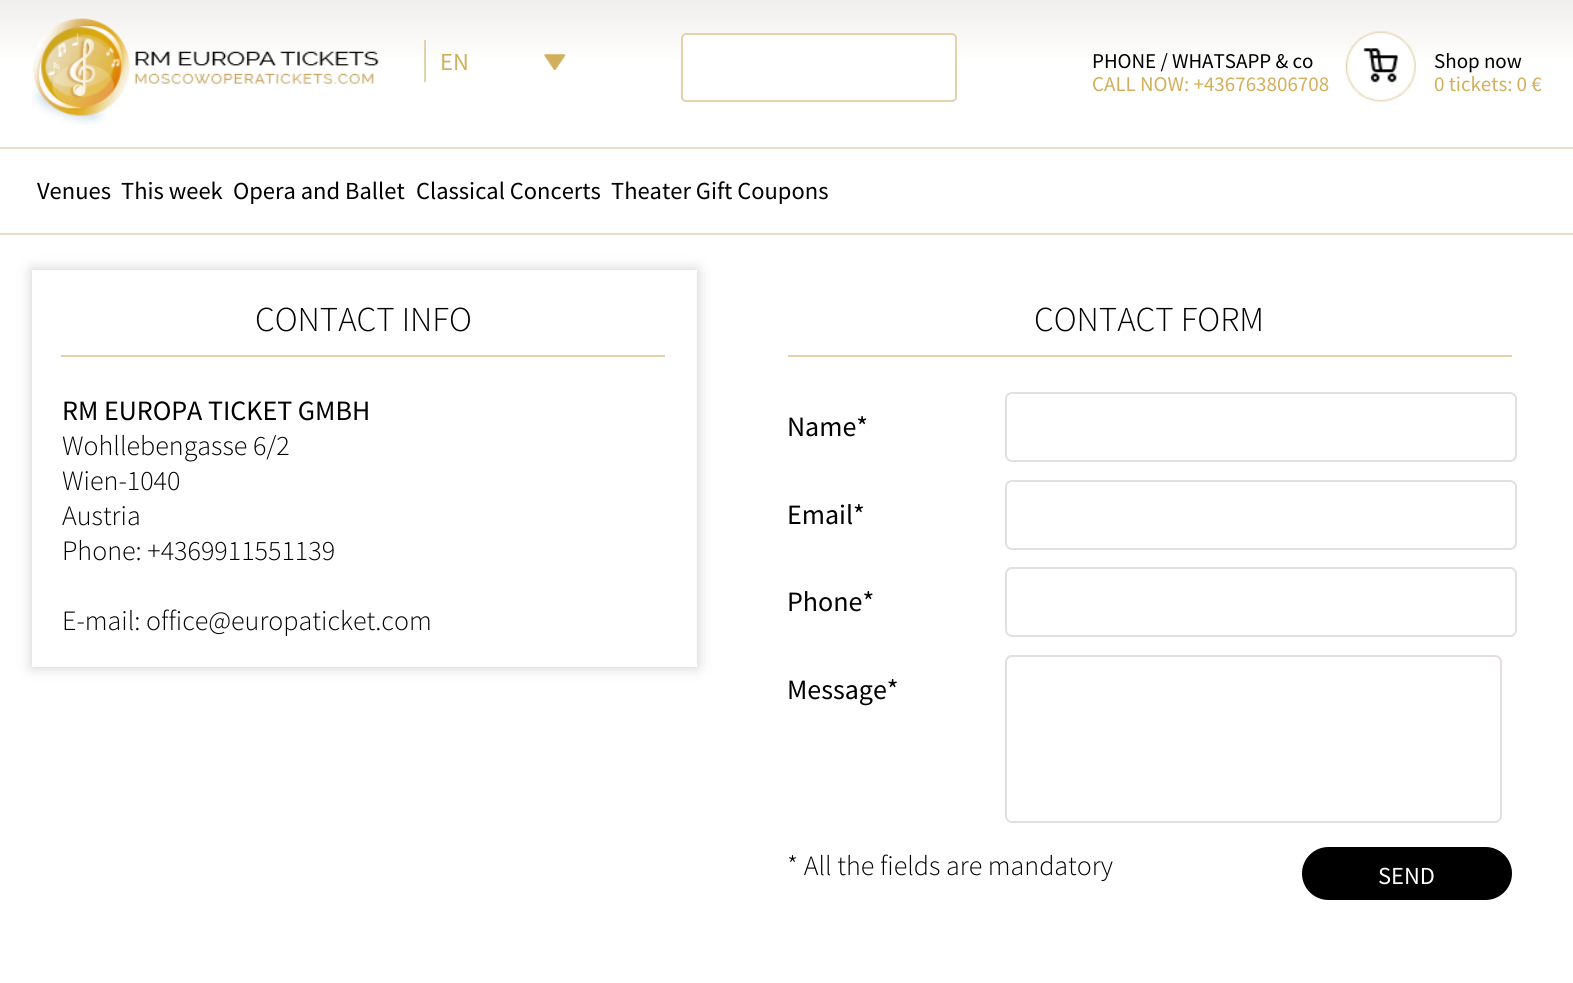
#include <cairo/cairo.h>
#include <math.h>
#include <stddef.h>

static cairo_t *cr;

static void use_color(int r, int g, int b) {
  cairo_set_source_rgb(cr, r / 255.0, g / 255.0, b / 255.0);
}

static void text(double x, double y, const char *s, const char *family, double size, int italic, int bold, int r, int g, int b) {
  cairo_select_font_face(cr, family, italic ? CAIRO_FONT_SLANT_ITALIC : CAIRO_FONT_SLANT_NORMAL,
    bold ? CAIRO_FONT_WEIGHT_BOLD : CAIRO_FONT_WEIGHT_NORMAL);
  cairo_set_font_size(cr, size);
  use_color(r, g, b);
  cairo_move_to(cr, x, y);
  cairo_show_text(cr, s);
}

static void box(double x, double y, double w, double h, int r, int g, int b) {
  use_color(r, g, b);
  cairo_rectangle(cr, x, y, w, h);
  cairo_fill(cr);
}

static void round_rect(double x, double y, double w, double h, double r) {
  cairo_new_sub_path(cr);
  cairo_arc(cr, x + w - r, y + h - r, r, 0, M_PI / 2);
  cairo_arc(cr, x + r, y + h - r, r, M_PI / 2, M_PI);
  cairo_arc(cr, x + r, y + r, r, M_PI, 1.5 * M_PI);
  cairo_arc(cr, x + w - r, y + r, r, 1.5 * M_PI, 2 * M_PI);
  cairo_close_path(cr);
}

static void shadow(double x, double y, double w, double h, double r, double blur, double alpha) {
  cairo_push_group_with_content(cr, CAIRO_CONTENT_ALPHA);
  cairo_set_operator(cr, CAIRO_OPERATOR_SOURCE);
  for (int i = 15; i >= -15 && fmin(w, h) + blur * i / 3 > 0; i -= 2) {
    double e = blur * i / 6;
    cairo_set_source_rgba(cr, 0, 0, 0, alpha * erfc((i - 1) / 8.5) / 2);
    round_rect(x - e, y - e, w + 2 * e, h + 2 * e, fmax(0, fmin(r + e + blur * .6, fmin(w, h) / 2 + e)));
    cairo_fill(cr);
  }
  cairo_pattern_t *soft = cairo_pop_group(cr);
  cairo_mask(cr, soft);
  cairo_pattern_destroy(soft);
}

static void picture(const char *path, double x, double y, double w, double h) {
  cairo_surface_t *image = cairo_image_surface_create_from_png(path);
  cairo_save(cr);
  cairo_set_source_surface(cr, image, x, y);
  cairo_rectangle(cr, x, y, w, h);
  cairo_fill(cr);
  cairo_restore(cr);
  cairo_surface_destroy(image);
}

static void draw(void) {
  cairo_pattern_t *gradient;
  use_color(255, 255, 255);
  cairo_paint(cr);
  gradient = cairo_pattern_create_linear(787, 0, 787, 147);
  cairo_pattern_add_color_stop_rgba(gradient, 0, 0.945, 0.937, 0.925, 1);
  cairo_pattern_add_color_stop_rgba(gradient, 0.45, 1, 1, 1, 1);
  cairo_set_source(cr, gradient);
  cairo_pattern_destroy(gradient);
  cairo_rectangle(cr, 0, 0, 1573, 57);
  cairo_fill(cr);
  box(0, 147, 1573, 2, 234, 221, 208);
  picture("img_01.png", 32, 18, 347, 107);
  picture("img_02.png", 544, 54, 22, 16);
  box(424, 40, 2, 42, 227, 211, 172);
  use_color(255, 255, 255);
  round_rect(682, 34, 274, 67, 4);
  cairo_fill_preserve(cr);
  use_color(227, 211, 172);
  cairo_stroke(cr);
  picture("img_03.png", 1345, 31, 71, 71);
  box(0, 233, 1573, 2, 234, 221, 208);
  use_color(206, 206, 206);
  shadow(32, 270, 665, 397, 0, 7, 1);
  box(32, 270, 665, 397, 255, 255, 255);
  box(61, 355, 604, 2, 227, 211, 172);
  box(788, 355, 724, 2, 227, 211, 172);
  round_rect(1006, 393, 510, 68, 6);
  use_color(227, 223, 223);
  cairo_stroke(cr);
  round_rect(1006, 481, 510, 68, 6);
  cairo_stroke(cr);
  round_rect(1006, 568, 510, 68, 6);
  cairo_stroke(cr);
  round_rect(1006, 656, 495, 166, 6);
  cairo_stroke(cr);
  use_color(0, 0, 0);
  round_rect(1303, 848, 208, 51, 25.5);
  cairo_fill_preserve(cr);
  cairo_stroke(cr);
  text(440, 70, "EN", "Source Sans Pro", 24.5, 0, 0, 210, 175, 92);
  text(1092, 68, "PHONE / WHATSAPP & co", "Source Sans Pro", 21, 0, 0, 0, 0, 0);
  text(1092, 91, "CALL NOW: +436763806708", "Source Sans Pro", 21, 0, 0, 210, 175, 92);
  text(1434, 68, "Shop now", "Source Sans Pro", 21, 0, 0, 0, 0, 0);
  text(1434, 91, "0 tickets: 0 €", "Source Sans Pro", 21, 0, 0, 210, 175, 92);
  text(37, 199, "Venues", "Source Sans Pro", 24.5, 0, 0, 0, 0, 0);
  text(121, 199, "This week", "Source Sans Pro", 24.5, 0, 0, 0, 0, 0);
  text(233, 199, "Opera and Ballet", "Source Sans Pro", 24.5, 0, 0, 0, 0, 0);
  text(416, 199, "Classical Concerts", "Source Sans Pro", 24.5, 0, 0, 0, 0, 0);
  text(611, 199, "Theater Gift Coupons", "Source Sans Pro", 24.5, 0, 0, 0, 0, 0);
  text(255, 331, "CONTACT INFO", "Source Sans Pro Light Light", 35, 0, 0, 0, 0, 0);
  text(62, 420, "RM EUROPA TICKET GMBH", "Source Sans Pro", 28, 0, 0, 0, 0, 0);
  text(62, 455, "Wohllebengasse 6/2", "Source Sans Pro Light Light", 28, 0, 0, 0, 0, 0);
  text(62, 490, "Wien-1040", "Source Sans Pro Light Light", 28, 0, 0, 0, 0, 0);
  text(62, 525, "Austria", "Source Sans Pro Light Light", 28, 0, 0, 0, 0, 0);
  text(62, 560, "Phone: +4369911551139", "Source Sans Pro Light Light", 28, 0, 0, 0, 0, 0);
  text(62, 630, "E-mail: office@europaticket.com", "Source Sans Pro Light Light", 28, 0, 0, 0, 0, 0);
  text(1034, 331, "CONTACT FORM", "Source Sans Pro Light Light", 35, 0, 0, 0, 0, 0);
  text(787, 436, "Name*", "Source Sans Pro", 28, 0, 0, 0, 0, 0);
  text(787, 524, "Email*", "Source Sans Pro", 28, 0, 0, 0, 0, 0);
  text(787, 611, "Phone*", "Source Sans Pro", 28, 0, 0, 0, 0, 0);
  text(787, 699, "Message*", "Source Sans Pro", 28, 0, 0, 0, 0, 0);
  text(787, 875, "* All the fields are mandatory", "Source Sans Pro Light Light", 28, 0, 0, 0, 0, 0);
  text(1378, 884, "SEND", "Source Sans Pro", 24.5, 0, 0, 255, 255, 255);
}

int main(void) {
  cairo_surface_t *surface = cairo_image_surface_create(CAIRO_FORMAT_RGB24, 1573, 983);
  cr = cairo_create(surface);
  cairo_font_options_t *options = cairo_font_options_create();
  cairo_font_options_set_hint_metrics(options, CAIRO_HINT_METRICS_OFF);
  cairo_font_options_set_hint_style(options, CAIRO_HINT_STYLE_NONE);
  cairo_set_font_options(cr, options);
  cairo_set_miter_limit(cr, 4);
  draw();
  cairo_surface_write_to_png(surface, "out.png");
  cairo_font_options_destroy(options);
  cairo_destroy(cr);
  cairo_surface_destroy(surface);
  return 0;
}
